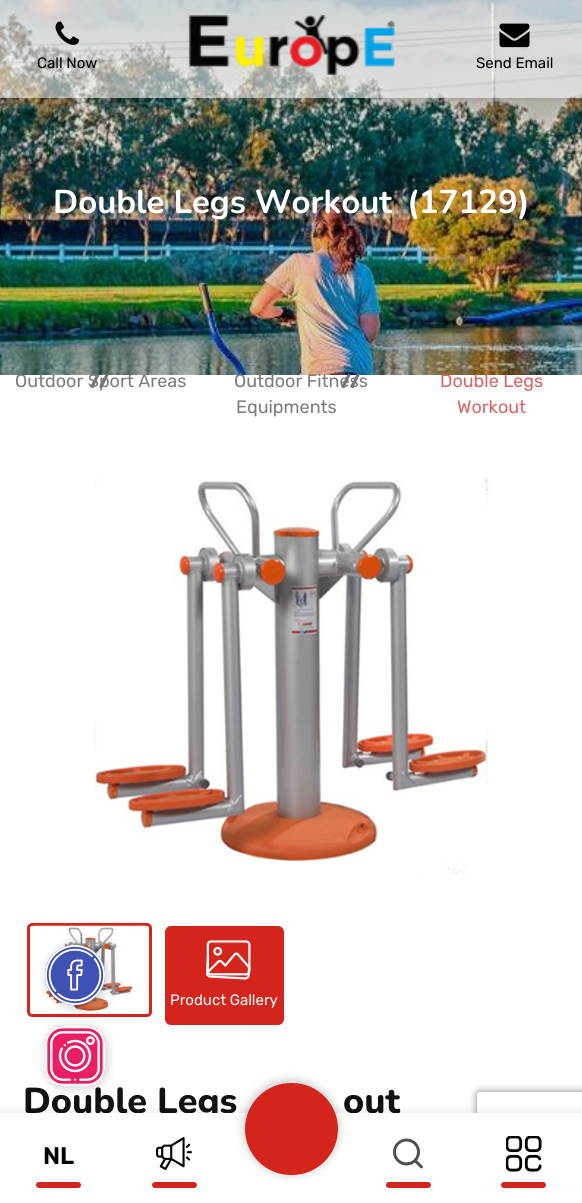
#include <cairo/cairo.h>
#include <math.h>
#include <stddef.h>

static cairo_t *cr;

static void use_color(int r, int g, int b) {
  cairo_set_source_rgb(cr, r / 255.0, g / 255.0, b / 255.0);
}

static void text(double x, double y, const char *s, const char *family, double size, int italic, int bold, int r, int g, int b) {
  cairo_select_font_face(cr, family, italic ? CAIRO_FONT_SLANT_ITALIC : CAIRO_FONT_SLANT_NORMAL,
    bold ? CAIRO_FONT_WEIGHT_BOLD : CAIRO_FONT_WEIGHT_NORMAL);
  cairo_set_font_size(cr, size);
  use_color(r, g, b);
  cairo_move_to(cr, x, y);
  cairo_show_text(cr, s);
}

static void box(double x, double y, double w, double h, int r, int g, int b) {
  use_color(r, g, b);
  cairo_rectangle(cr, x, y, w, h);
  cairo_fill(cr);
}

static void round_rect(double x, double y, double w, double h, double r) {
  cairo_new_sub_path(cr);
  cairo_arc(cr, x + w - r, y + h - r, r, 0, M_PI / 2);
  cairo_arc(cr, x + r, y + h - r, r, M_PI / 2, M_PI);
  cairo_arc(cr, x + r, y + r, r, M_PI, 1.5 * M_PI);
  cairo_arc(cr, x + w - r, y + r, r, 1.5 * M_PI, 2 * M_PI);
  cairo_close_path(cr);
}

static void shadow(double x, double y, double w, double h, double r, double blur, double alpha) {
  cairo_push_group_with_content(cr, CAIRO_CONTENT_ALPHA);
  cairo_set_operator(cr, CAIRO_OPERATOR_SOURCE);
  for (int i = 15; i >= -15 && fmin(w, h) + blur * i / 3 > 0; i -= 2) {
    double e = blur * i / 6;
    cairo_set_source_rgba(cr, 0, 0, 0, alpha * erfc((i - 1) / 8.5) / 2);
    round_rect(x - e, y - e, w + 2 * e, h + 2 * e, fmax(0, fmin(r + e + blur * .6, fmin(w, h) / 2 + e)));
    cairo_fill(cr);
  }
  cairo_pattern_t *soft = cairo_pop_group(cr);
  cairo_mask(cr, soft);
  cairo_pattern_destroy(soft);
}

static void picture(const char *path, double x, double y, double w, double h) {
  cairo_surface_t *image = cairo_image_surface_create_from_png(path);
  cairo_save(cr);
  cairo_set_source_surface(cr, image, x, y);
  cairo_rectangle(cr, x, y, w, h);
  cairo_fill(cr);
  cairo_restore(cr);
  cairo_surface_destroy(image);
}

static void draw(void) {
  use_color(255, 255, 255);
  cairo_paint(cr);
  picture("img_07.png", 0, 0, 582, 375);
  cairo_save(cr);
  cairo_set_fill_rule(cr, CAIRO_FILL_RULE_EVEN_ODD);
  cairo_new_path(cr);
  cairo_move_to(cr, 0, 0);
  cairo_line_to(cr, 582, 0);
  cairo_line_to(cr, 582, 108);
  cairo_line_to(cr, 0, 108);
  cairo_close_path(cr);
  cairo_move_to(cr, 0, 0);
  cairo_line_to(cr, 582, 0);
  cairo_line_to(cr, 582, 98);
  cairo_line_to(cr, 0, 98);
  cairo_close_path(cr);
  cairo_clip(cr);
  use_color(0, 0, 0);
  shadow(0, 0, 582, 98, 0, 3, 0.2);
  cairo_restore(cr);
  cairo_set_source_rgba(cr, 1, 1, 1, 0.55);
  cairo_rectangle(cr, 0, 0, 582, 98);
  cairo_fill(cr);
  picture("img_01.png", 55, 21, 24, 24);
  picture("img_02.png", 188, 15, 207, 60);
  picture("img_03.png", 499, 23, 31, 25);
  picture("img_08.png", 94, 478, 397, 396);
  round_rect(28.5, 924.5, 122, 91, 3.5);
  use_color(212, 37, 29);
  cairo_set_line_width(cr, 3);
  cairo_stroke(cr);
  picture("img_09.png", 30, 925, 116, 89);
  round_rect(163.5, 924.5, 122, 102, 7.5);
  cairo_fill_preserve(cr);
  use_color(255, 255, 255);
  cairo_stroke(cr);
  picture("img_10.png", 206, 940, 45, 40);
  use_color(0, 0, 0);
  shadow(45, 945, 63, 63, 31.5, 4.5, 0.15);
  use_color(63, 81, 181);
  cairo_arc(cr, 75, 975, 30, 0, 2 * M_PI);
  cairo_fill(cr);
  picture("img_11.png", 45, 945, 60, 60);
  use_color(0, 0, 0);
  shadow(45, 1026, 63, 63, 20, 4.5, 0.15);
  use_color(233, 30, 99);
  round_rect(45, 1026, 60, 60, 18);
  cairo_fill(cr);
  picture("img_12.png", 45, 1026, 60, 60);
  cairo_save(cr);
  cairo_set_fill_rule(cr, CAIRO_FILL_RULE_EVEN_ODD);
  cairo_new_path(cr);
  cairo_move_to(cr, 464, 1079);
  cairo_line_to(cr, 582, 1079);
  cairo_line_to(cr, 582, 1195);
  cairo_line_to(cr, 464, 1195);
  cairo_close_path(cr);
  cairo_move_to(cr, 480, 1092);
  cairo_line_to(cr, 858, 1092);
  cairo_curve_to(cr, 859.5, 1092, 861, 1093.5, 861, 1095);
  cairo_line_to(cr, 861, 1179);
  cairo_curve_to(cr, 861, 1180.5, 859.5, 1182, 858, 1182);
  cairo_line_to(cr, 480, 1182);
  cairo_curve_to(cr, 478.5, 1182, 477, 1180.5, 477, 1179);
  cairo_line_to(cr, 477, 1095);
  cairo_curve_to(cr, 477, 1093.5, 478.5, 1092, 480, 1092);
  cairo_close_path(cr);
  cairo_clip(cr);
  use_color(128, 128, 128);
  shadow(477, 1092, 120, 90, 3, 4, 1);
  cairo_restore(cr);
  text(37, 68, "Call Now", "Rubik", 15, 0, 0, 0, 0, 0);
  text(476, 68, "Send Email", "Rubik", 15, 0, 0, 0, 0, 0);
  text(53, 213, "Double Legs Workout", "Nunito", 33, 0, 1, 255, 255, 255);
  text(407, 213, "(17129)", "Nunito", 33, 0, 1, 255, 255, 255);
  text(15, 387, "Outdoor Sport Areas", "Rubik", 18, 0, 0, 124, 124, 124);
  use_color(117, 117, 117);
  cairo_new_path(cr);
  cairo_move_to(cr, 97, 373.5);
  cairo_line_to(cr, 99.5, 375);
  cairo_line_to(cr, 93, 388.5);
  cairo_line_to(cr, 90, 387);
  cairo_close_path(cr);
  cairo_fill(cr);
  cairo_new_path(cr);
  cairo_move_to(cr, 106, 373.5);
  cairo_line_to(cr, 108.5, 375);
  cairo_line_to(cr, 102, 388.5);
  cairo_line_to(cr, 99, 387);
  cairo_close_path(cr);
  cairo_fill(cr);
  text(234, 387, "Outdoor Fitness", "Rubik", 18, 0, 0, 124, 124, 124);
  use_color(117, 117, 117);
  cairo_new_path(cr);
  cairo_move_to(cr, 348, 373.5);
  cairo_line_to(cr, 350.5, 375);
  cairo_line_to(cr, 344, 388.5);
  cairo_line_to(cr, 341, 387);
  cairo_close_path(cr);
  cairo_fill(cr);
  cairo_new_path(cr);
  cairo_move_to(cr, 357, 373.5);
  cairo_line_to(cr, 359.5, 375);
  cairo_line_to(cr, 353, 388.5);
  cairo_line_to(cr, 350, 387);
  cairo_close_path(cr);
  cairo_fill(cr);
  text(236, 413, "Equipments", "Rubik", 18, 0, 0, 124, 124, 124);
  text(440, 387, "Double Legs", "Rubik", 18, 0, 0, 218, 101, 101);
  text(457, 413, "Workout", "Rubik", 18, 0, 0, 218, 101, 101);
  text(170, 1005, "Product Gallery", "Rubik", 15, 0, 0, 255, 255, 255);
  text(23, 1113, "Double Legs", "Nunito ExtraBold", 36, 0, 0, 17, 17, 17);
  text(343, 1113, "out", "Nunito ExtraBold", 36, 0, 0, 17, 17, 17);
  box(58, 1113, 524, 77, 255, 255, 255);
  cairo_save(cr);
  cairo_rectangle(cr, 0, 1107, 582, 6);
  cairo_clip(cr);
  use_color(0, 0, 0);
  shadow(-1, 1110, 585, 93, 0, 4.5, 0.07);
  cairo_restore(cr);
  use_color(212, 37, 29);
  round_rect(501, 1182, 45, 6, 3);
  cairo_fill(cr);
  round_rect(386, 1182, 45, 6, 3);
  cairo_fill(cr);
  round_rect(152, 1182, 45, 6, 3);
  cairo_fill(cr);
  round_rect(36, 1182, 45, 6, 3);
  cairo_fill(cr);
  picture("img_06.png", 506, 1136, 36, 36);
  picture("img_05.png", 393, 1138, 30, 31);
  picture("img_04.png", 156, 1137, 36, 33);
  use_color(0, 0, 0);
  shadow(243, 1080, 96, 95, 47.5, 4.5, 0.2);
  use_color(212, 37, 29);
  round_rect(245, 1083, 93, 92, 46);
  cairo_fill(cr);
  text(43, 1164, "NL", "Rubik SemiBold", 24, 0, 0, 0, 0, 0);
}

int main(void) {
  cairo_surface_t *surface = cairo_image_surface_create(CAIRO_FORMAT_RGB24, 582, 1203);
  cr = cairo_create(surface);
  cairo_font_options_t *options = cairo_font_options_create();
  cairo_font_options_set_hint_metrics(options, CAIRO_HINT_METRICS_OFF);
  cairo_font_options_set_hint_style(options, CAIRO_HINT_STYLE_NONE);
  cairo_set_font_options(cr, options);
  cairo_set_miter_limit(cr, 4);
  draw();
  cairo_surface_write_to_png(surface, "out.png");
  cairo_font_options_destroy(options);
  cairo_destroy(cr);
  cairo_surface_destroy(surface);
  return 0;
}
